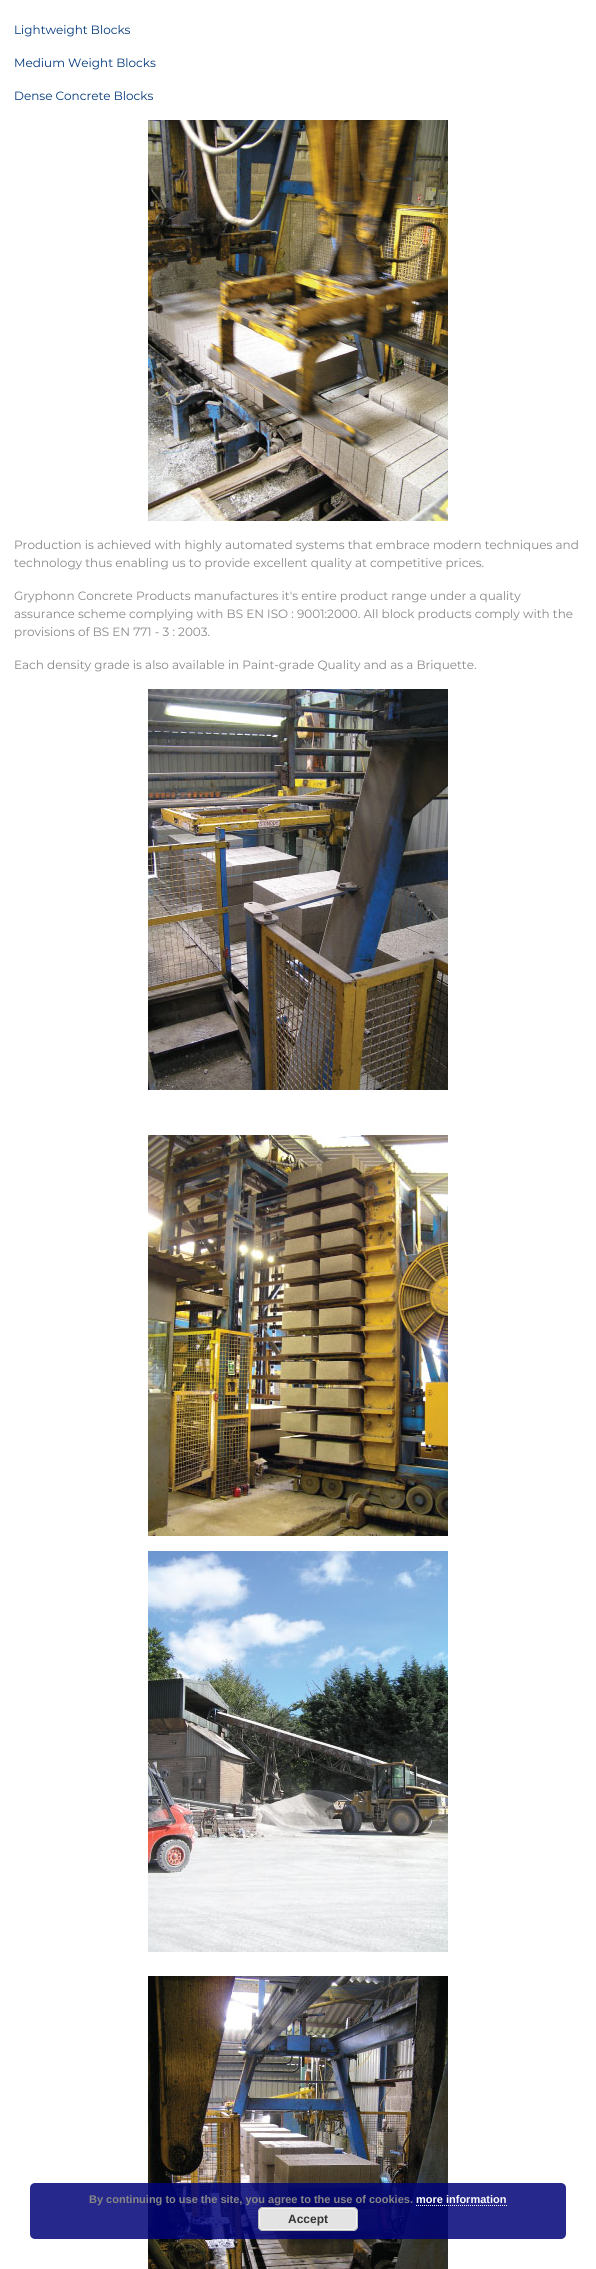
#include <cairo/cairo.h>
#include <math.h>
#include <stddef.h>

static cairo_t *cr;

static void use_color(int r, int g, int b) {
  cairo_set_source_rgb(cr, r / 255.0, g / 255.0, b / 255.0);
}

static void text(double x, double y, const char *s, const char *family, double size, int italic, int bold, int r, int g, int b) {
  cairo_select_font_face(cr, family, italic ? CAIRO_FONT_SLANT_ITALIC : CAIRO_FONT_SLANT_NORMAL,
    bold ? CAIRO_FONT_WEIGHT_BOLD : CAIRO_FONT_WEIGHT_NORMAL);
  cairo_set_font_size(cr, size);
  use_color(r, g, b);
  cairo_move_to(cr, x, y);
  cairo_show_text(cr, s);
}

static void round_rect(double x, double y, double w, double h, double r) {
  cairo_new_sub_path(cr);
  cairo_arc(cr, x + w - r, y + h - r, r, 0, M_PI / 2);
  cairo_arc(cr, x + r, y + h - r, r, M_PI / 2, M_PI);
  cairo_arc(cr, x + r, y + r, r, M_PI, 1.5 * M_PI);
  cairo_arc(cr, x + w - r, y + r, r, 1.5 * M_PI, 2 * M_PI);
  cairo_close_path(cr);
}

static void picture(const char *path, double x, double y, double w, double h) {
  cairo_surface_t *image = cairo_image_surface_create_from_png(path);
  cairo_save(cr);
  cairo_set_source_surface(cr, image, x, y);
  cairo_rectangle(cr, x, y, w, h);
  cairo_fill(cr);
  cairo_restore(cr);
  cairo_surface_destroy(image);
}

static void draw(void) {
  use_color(255, 255, 255);
  cairo_paint(cr);
  picture("img_01.png", 148, 120, 300, 401);
  picture("img_02.png", 148, 689, 300, 401);
  picture("img_03.png", 148, 1135, 300, 401);
  picture("img_04.png", 148, 1551, 300, 401);
  picture("img_05.png", 148, 1976, 300, 293);
  cairo_set_source_rgba(cr, 0, 0.016, 0.467, 0.85);
  round_rect(30, 2183, 536, 56, 5);
  cairo_fill(cr);
  cairo_new_path(cr);
  cairo_move_to(cr, 416, 2205.5);
  cairo_line_to(cr, 507, 2205.5);
  use_color(255, 255, 255);
  cairo_set_line_width(cr, 1);
  cairo_set_dash(cr, (double[]){1, 1}, 2, 0);
  cairo_stroke(cr);
  use_color(227, 227, 227);
  round_rect(258, 2207, 100, 24, 5);
  cairo_fill(cr);
  round_rect(259.5, 2208.5, 97, 21, 3.5);
  use_color(246, 246, 246);
  cairo_set_dash(cr, NULL, 0, 0);
  cairo_stroke(cr);
  round_rect(258.5, 2207.5, 99, 23, 4.5);
  use_color(187, 187, 187);
  cairo_stroke(cr);
  text(14, 34, "Lightweight Blocks", "Montserrat", 12, 0, 0, 0, 55, 123);
  text(14, 67, "Medium Weight Blocks", "Montserrat", 12, 0, 0, 0, 55, 123);
  text(14, 100, "Dense Concrete Blocks", "Montserrat", 12, 0, 0, 0, 55, 123);
  text(14, 549, "Production is achieved with highly automated systems that embrace modern techniques and", "Montserrat", 12, 0, 0, 135, 135, 135);
  text(14, 567, "technology thus enabling us to provide excellent quality at competitive prices.", "Montserrat", 12, 0, 0, 135, 135, 135);
  text(14, 600, "Gryphonn Concrete Products manufactures it's entire product range under a quality", "Montserrat", 12, 0, 0, 135, 135, 135);
  text(14, 618, "assurance scheme complying with BS EN ISO : 9001:2000. All block products comply with the", "Montserrat", 12, 0, 0, 135, 135, 135);
  text(14, 636, "provisions of BS EN 771 - 3 : 2003.", "Montserrat", 12, 0, 0, 135, 135, 135);
  text(14, 669, "Each density grade is also available in Paint-grade Quality and as a Briquette.", "Montserrat", 12, 0, 0, 135, 135, 135);
  text(89, 2203, "By continuing to use the site, you agree to the use of cookies.", "Liberation Sans", 11, 0, 1, 135, 135, 135);
  text(416, 2203, "more information", "Liberation Sans", 11, 0, 1, 255, 255, 255);
  text(288, 2223, "Accept", "Liberation Sans", 12, 0, 1, 51, 51, 51);
}

int main(void) {
  cairo_surface_t *surface = cairo_image_surface_create(CAIRO_FORMAT_RGB24, 596, 2269);
  cr = cairo_create(surface);
  cairo_font_options_t *options = cairo_font_options_create();
  cairo_font_options_set_hint_metrics(options, CAIRO_HINT_METRICS_OFF);
  cairo_font_options_set_hint_style(options, CAIRO_HINT_STYLE_NONE);
  cairo_set_font_options(cr, options);
  cairo_set_miter_limit(cr, 4);
  draw();
  cairo_surface_write_to_png(surface, "out.png");
  cairo_font_options_destroy(options);
  cairo_destroy(cr);
  cairo_surface_destroy(surface);
  return 0;
}
